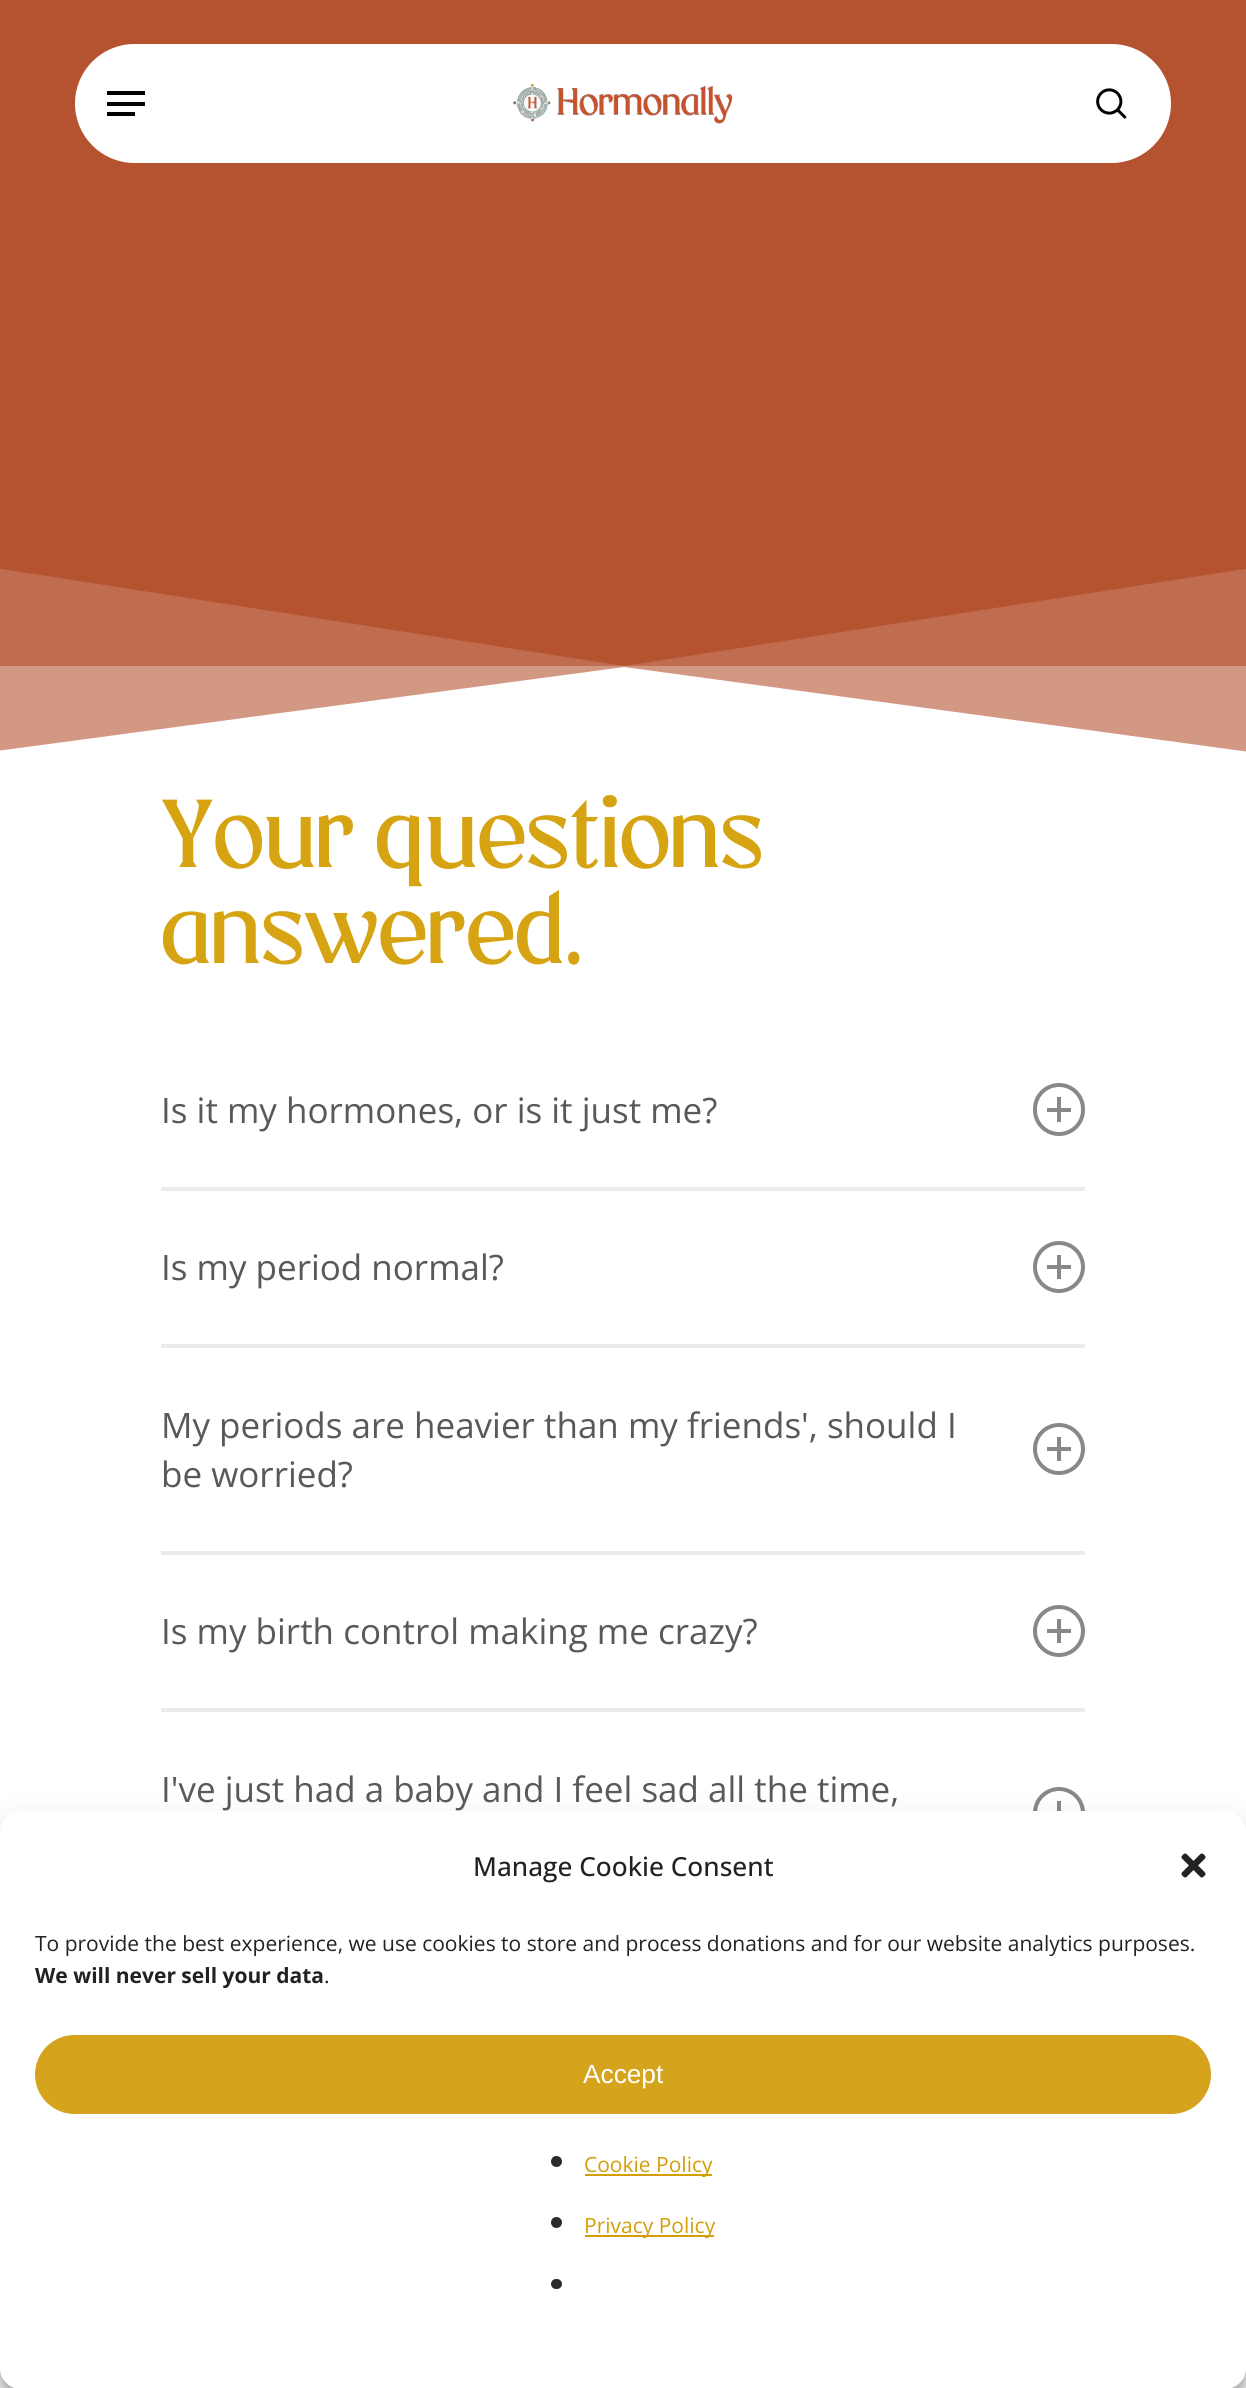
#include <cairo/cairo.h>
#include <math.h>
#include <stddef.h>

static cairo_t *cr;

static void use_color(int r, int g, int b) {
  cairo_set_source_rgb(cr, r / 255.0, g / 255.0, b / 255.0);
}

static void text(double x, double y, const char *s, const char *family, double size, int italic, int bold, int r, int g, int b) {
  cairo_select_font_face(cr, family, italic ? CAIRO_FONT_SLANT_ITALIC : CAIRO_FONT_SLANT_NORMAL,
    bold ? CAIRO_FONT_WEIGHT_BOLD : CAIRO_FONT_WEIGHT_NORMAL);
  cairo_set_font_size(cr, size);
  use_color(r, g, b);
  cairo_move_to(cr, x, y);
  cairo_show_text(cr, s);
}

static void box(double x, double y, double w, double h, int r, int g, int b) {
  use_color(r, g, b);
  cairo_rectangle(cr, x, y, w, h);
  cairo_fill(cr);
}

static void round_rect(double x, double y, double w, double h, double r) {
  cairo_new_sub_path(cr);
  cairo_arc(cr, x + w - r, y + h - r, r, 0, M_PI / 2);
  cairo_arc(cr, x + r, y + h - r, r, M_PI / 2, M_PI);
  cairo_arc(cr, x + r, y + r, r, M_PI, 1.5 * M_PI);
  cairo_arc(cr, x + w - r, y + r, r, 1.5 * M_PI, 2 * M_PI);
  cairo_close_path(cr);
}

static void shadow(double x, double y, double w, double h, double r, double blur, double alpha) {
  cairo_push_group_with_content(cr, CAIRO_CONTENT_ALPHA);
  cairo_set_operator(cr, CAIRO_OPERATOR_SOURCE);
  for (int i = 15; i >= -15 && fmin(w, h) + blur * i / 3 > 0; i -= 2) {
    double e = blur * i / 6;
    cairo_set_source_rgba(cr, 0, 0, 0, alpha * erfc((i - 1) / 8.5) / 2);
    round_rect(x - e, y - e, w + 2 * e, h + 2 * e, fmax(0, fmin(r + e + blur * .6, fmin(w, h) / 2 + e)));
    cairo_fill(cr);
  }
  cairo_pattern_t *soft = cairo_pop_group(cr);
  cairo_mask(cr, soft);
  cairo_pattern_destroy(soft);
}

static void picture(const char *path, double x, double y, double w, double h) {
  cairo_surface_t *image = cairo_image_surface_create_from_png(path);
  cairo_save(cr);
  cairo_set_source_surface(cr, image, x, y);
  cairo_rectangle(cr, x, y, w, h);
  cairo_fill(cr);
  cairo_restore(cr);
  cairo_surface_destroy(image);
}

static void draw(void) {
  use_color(181, 82, 48);
  cairo_paint(cr);
  use_color(255, 255, 255);
  round_rect(75, 44, 1096, 119, 59.5);
  cairo_fill(cr);
  picture("img_01.png", 513, 84, 220, 40);
  box(107, 91, 38, 4, 0, 0, 0);
  box(107, 112, 28, 4, 0, 0, 0);
  box(107, 102, 38, 4, 0, 0, 0);
  picture("img_02.png", 1096, 88, 31, 31);
  use_color(255, 255, 255);
  cairo_new_path(cr);
  cairo_move_to(cr, 624, 667);
  cairo_line_to(cr, -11, 752);
  cairo_line_to(cr, -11, 766);
  cairo_line_to(cr, 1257, 766);
  cairo_line_to(cr, 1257, 753);
  cairo_close_path(cr);
  cairo_fill(cr);
  cairo_set_source_rgba(cr, 1, 1, 1, 0.15);
  cairo_new_path(cr);
  cairo_move_to(cr, 624, 666);
  cairo_line_to(cr, -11, 567);
  cairo_line_to(cr, -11, 765);
  cairo_line_to(cr, 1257, 765);
  cairo_line_to(cr, 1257, 567);
  cairo_close_path(cr);
  cairo_fill(cr);
  cairo_set_source_rgba(cr, 1, 1, 1, 0.3);
  cairo_rectangle(cr, 0, 666, 1246, 86);
  cairo_fill(cr);
  box(0, 766, 1246, 1622, 255, 255, 255);
  box(161, 1187, 924, 4, 235, 235, 235);
  round_rect(1035, 1085, 48, 49, 24);
  use_color(136, 136, 136);
  cairo_set_line_width(cr, 4);
  cairo_stroke(cr);
  box(1047, 1108, 24, 4, 136, 136, 136);
  box(1057, 1097, 4, 25, 136, 136, 136);
  box(161, 1344, 924, 4, 235, 235, 235);
  cairo_arc(cr, 1059, 1267, 24, 0, 2 * M_PI);
  use_color(136, 136, 136);
  cairo_stroke(cr);
  box(1047, 1265, 24, 4, 136, 136, 136);
  box(1057, 1255, 4, 24, 136, 136, 136);
  box(161, 1551, 924, 4, 235, 235, 235);
  cairo_arc(cr, 1059, 1449, 24, 0, 2 * M_PI);
  use_color(136, 136, 136);
  cairo_stroke(cr);
  box(1047, 1447, 24, 4, 136, 136, 136);
  box(1057, 1437, 4, 24, 136, 136, 136);
  box(161, 1708, 924, 4, 235, 235, 235);
  cairo_arc(cr, 1059, 1631, 24, 0, 2 * M_PI);
  use_color(136, 136, 136);
  cairo_stroke(cr);
  box(1047, 1629, 24, 4, 136, 136, 136);
  box(1057, 1619, 4, 24, 136, 136, 136);
  cairo_arc(cr, 1059, 1813, 24, 0, 2 * M_PI);
  cairo_stroke(cr);
  box(1057, 1801, 4, 10, 136, 136, 136);
  use_color(0, 0, 0);
  shadow(0, 1822, 1246, 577, 21, 5, 0.23);
  shadow(0, 1829, 1246, 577, 21, 17.5, 0.19);
  use_color(255, 255, 255);
  round_rect(0, 1811, 1246, 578, 21);
  cairo_fill(cr);
  picture("img_03.png", 1181, 1853, 25, 25);
  use_color(214, 163, 29);
  round_rect(36, 2036, 1174, 77, 38.5);
  cairo_fill_preserve(cr);
  cairo_set_line_width(cr, 2);
  cairo_stroke(cr);
  use_color(43, 43, 43);
  cairo_arc(cr, 556.5, 2161.5, 5.5, 0, 2 * M_PI);
  cairo_fill(cr);
  box(585, 2174, 127, 2, 211, 158, 9);
  use_color(43, 43, 43);
  cairo_arc(cr, 556.5, 2222.5, 5.5, 0, 2 * M_PI);
  cairo_fill(cr);
  box(585, 2235, 129, 2, 211, 158, 9);
  use_color(43, 43, 43);
  round_rect(551, 2279, 11, 10, 5);
  cairo_fill(cr);
  text(161, 867, "Your questions", "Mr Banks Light", 96.25, 0, 0, 214, 163, 19);
  text(161, 963, "answered.", "Mr Banks Light", 96.25, 0, 0, 214, 163, 19);
  text(161, 1123, "Is it my hormones, or is it just me?", "Open Sans", 35, 0, 0, 89, 89, 89);
  text(161, 1280, "Is my period normal?", "Open Sans", 35, 0, 0, 89, 89, 89);
  text(161, 1438, "My periods are heavier than my friends', should I", "Open Sans", 35, 0, 0, 89, 89, 89);
  text(161, 1487, "be worried?", "Open Sans", 35, 0, 0, 89, 89, 89);
  text(161, 1644, "Is my birth control making me crazy?", "Open Sans", 35, 0, 0, 89, 89, 89);
  text(161, 1802, "I've just had a baby and I feel sad all the time,", "Open Sans", 35, 0, 0, 89, 89, 89);
  text(473, 1876, "Manage Cookie Consent", "Open Sans Medium", 26.25, 0, 0, 34, 34, 34);
  text(35, 1951, "To provide the best experience, we use cookies to store and process donations and for our website analytics purposes.", "Open Sans", 21, 0, 0, 34, 34, 34);
  text(35, 1983, "We will never sell your data", "Open Sans", 21, 0, 1, 34, 34, 34);
  text(324, 1983, ".", "Open Sans", 21, 0, 0, 34, 34, 34);
  text(583, 2083, "Accept", "Liberation Sans", 26.25, 0, 0, 255, 255, 255);
  text(584, 2172, "Cookie Policy", "Open Sans", 21, 0, 0, 211, 158, 9);
  text(584, 2233, "Privacy Policy", "Open Sans", 21, 0, 0, 211, 158, 9);
}

int main(void) {
  cairo_surface_t *surface = cairo_image_surface_create(CAIRO_FORMAT_RGB24, 1246, 2388);
  cr = cairo_create(surface);
  cairo_font_options_t *options = cairo_font_options_create();
  cairo_font_options_set_hint_metrics(options, CAIRO_HINT_METRICS_OFF);
  cairo_font_options_set_hint_style(options, CAIRO_HINT_STYLE_NONE);
  cairo_set_font_options(cr, options);
  cairo_set_miter_limit(cr, 4);
  draw();
  cairo_surface_write_to_png(surface, "out.png");
  cairo_font_options_destroy(options);
  cairo_destroy(cr);
  cairo_surface_destroy(surface);
  return 0;
}
